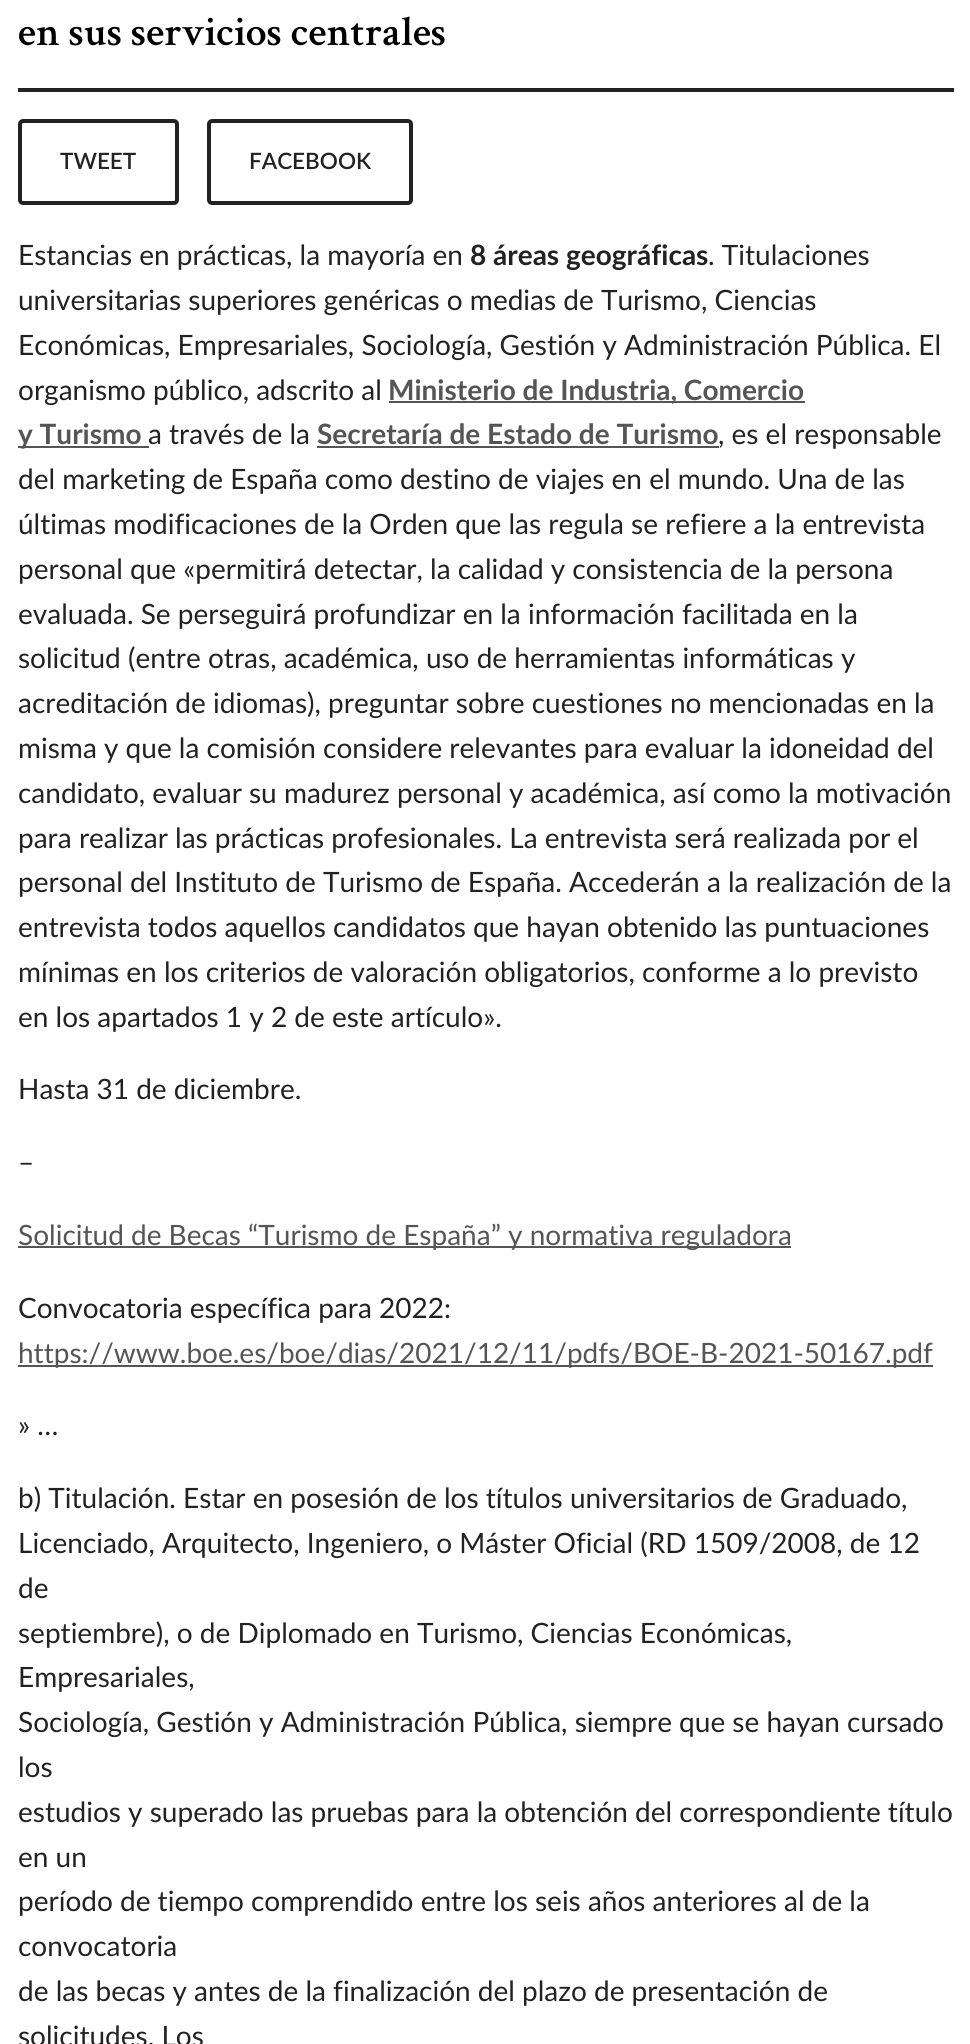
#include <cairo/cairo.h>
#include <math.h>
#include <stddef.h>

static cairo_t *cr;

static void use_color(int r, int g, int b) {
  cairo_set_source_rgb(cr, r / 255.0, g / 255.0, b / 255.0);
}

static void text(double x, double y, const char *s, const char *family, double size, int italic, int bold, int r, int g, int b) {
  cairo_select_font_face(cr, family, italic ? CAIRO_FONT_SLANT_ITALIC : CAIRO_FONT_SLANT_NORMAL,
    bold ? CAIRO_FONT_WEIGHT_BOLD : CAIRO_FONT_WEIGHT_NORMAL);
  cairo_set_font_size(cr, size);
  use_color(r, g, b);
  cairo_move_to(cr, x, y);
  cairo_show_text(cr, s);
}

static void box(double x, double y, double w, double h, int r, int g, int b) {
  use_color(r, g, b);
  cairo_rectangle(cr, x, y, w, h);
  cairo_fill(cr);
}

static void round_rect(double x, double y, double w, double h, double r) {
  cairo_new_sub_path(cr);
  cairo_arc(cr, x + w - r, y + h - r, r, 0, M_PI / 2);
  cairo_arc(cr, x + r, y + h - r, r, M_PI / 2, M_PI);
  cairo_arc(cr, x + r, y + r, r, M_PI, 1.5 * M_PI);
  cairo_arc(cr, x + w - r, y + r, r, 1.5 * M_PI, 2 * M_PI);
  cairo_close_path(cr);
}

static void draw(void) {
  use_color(255, 255, 255);
  cairo_paint(cr);
  box(18, 88, 936, 4, 34, 34, 34);
  round_rect(20, 121, 157, 82, 3);
  cairo_set_line_width(cr, 4);
  cairo_stroke(cr);
  round_rect(209, 121, 202, 82, 3);
  cairo_stroke(cr);
  box(389, 401, 416, 2, 85, 85, 85);
  box(18, 446, 131, 2, 85, 85, 85);
  box(317, 446, 402, 2, 85, 85, 85);
  box(18, 1246, 773, 2, 85, 85, 85);
  box(18, 1365, 915, 2, 85, 85, 85);
  text(18, 45, "en sus servicios centrales", "Crimson Text SemiBold", 42, 0, 0, 0, 0, 0);
  text(60, 169, "TWEET", "Lato SemiBold", 22.5, 0, 0, 34, 34, 34);
  text(249, 169, "FACEBOOK", "Lato SemiBold", 22.5, 0, 0, 34, 34, 34);
  text(18, 265, "Estancias en prácticas, la mayoría en", "Lato", 28, 0, 0, 34, 34, 34);
  text(470, 265, "8 áreas geográficas", "Lato", 28, 0, 1, 34, 34, 34);
  text(708, 265, ". Titulaciones", "Lato", 28, 0, 0, 34, 34, 34);
  text(18, 310, "universitarias superiores genéricas o medias de Turismo, Ciencias", "Lato", 28, 0, 0, 34, 34, 34);
  text(18, 355, "Económicas, Empresariales, Sociología, Gestión y Administración Pública. El", "Lato", 28, 0, 0, 34, 34, 34);
  text(18, 400, "organismo público, adscrito al", "Lato", 28, 0, 0, 34, 34, 34);
  text(388, 400, "Ministerio de Industria, Comercio", "Lato", 28, 0, 1, 85, 85, 85);
  text(18, 444, "y Turismo", "Lato", 28, 0, 1, 85, 85, 85);
  text(148, 444, "a través de la", "Lato", 28, 0, 0, 34, 34, 34);
  text(317, 444, "Secretaría de Estado de Turismo", "Lato", 28, 0, 1, 85, 85, 85);
  text(718, 444, ", es el responsable", "Lato", 28, 0, 0, 34, 34, 34);
  text(18, 489, "del marketing de España como destino de viajes en el mundo. Una de las", "Lato", 28, 0, 0, 34, 34, 34);
  text(18, 534, "últimas modificaciones de la Orden que las regula se refiere a la entrevista", "Lato", 28, 0, 0, 34, 34, 34);
  text(18, 579, "personal que «permitirá detectar, la calidad y consistencia de la persona", "Lato", 28, 0, 0, 34, 34, 34);
  text(18, 624, "evaluada. Se perseguirá profundizar en la información facilitada en la", "Lato", 28, 0, 0, 34, 34, 34);
  text(18, 668, "solicitud (entre otras, académica, uso de herramientas informáticas y", "Lato", 28, 0, 0, 34, 34, 34);
  text(18, 713, "acreditación de idiomas), preguntar sobre cuestiones no mencionadas en la", "Lato", 28, 0, 0, 34, 34, 34);
  text(18, 758, "misma y que la comisión considere relevantes para evaluar la idoneidad del", "Lato", 28, 0, 0, 34, 34, 34);
  text(18, 803, "candidato, evaluar su madurez personal y académica, así como la motivación", "Lato", 28, 0, 0, 34, 34, 34);
  text(18, 848, "para realizar las prácticas profesionales. La entrevista será realizada por el", "Lato", 28, 0, 0, 34, 34, 34);
  text(18, 892, "personal del Instituto de Turismo de España. Accederán a la realización de la", "Lato", 28, 0, 0, 34, 34, 34);
  text(18, 937, "entrevista todos aquellos candidatos que hayan obtenido las puntuaciones", "Lato", 28, 0, 0, 34, 34, 34);
  text(18, 982, "mínimas en los criterios de valoración obligatorios, conforme a lo previsto", "Lato", 28, 0, 0, 34, 34, 34);
  text(18, 1027, "en los apartados 1 y 2 de este artículo».", "Lato", 28, 0, 0, 34, 34, 34);
  text(18, 1099, "Hasta 31 de diciembre.", "Lato", 28, 0, 0, 34, 34, 34);
  text(18, 1172, "–", "Lato", 28, 0, 0, 34, 34, 34);
  text(18, 1245, "Solicitud de Becas “Turismo de España” y normativa reguladora", "Lato", 28, 0, 0, 85, 85, 85);
  text(18, 1318, "Convocatoria específica para 2022:", "Lato", 28, 0, 0, 34, 34, 34);
  text(18, 1363, "https://www.boe.es/boe/dias/2021/12/11/pdfs/BOE-B-2021-50167.pdf", "Lato", 28, 0, 0, 85, 85, 85);
  text(18, 1435, "» …", "Lato", 28, 0, 0, 34, 34, 34);
  text(18, 1508, "b) Titulación. Estar en posesión de los títulos universitarios de Graduado,", "Lato", 28, 0, 0, 34, 34, 34);
  text(18, 1553, "Licenciado, Arquitecto, Ingeniero, o Máster Oficial (RD 1509/2008, de 12", "Lato", 28, 0, 0, 34, 34, 34);
  text(18, 1598, "de", "Lato", 28, 0, 0, 34, 34, 34);
  text(18, 1643, "septiembre), o de Diplomado en Turismo, Ciencias Económicas,", "Lato", 28, 0, 0, 34, 34, 34);
  text(18, 1687, "Empresariales,", "Lato", 28, 0, 0, 34, 34, 34);
  text(18, 1732, "Sociología, Gestión y Administración Pública, siempre que se hayan cursado", "Lato", 28, 0, 0, 34, 34, 34);
  text(18, 1777, "los", "Lato", 28, 0, 0, 34, 34, 34);
  text(18, 1822, "estudios y superado las pruebas para la obtención del correspondiente título", "Lato", 28, 0, 0, 34, 34, 34);
  text(18, 1867, "en un", "Lato", 28, 0, 0, 34, 34, 34);
  text(18, 1911, "período de tiempo comprendido entre los seis años anteriores al de la", "Lato", 28, 0, 0, 34, 34, 34);
  text(18, 1956, "convocatoria", "Lato", 28, 0, 0, 34, 34, 34);
  text(18, 2001, "de las becas y antes de la finalización del plazo de presentación de", "Lato", 28, 0, 0, 34, 34, 34);
  text(18, 2046, "solicitudes. Los", "Lato", 28, 0, 0, 34, 34, 34);
}

int main(void) {
  cairo_surface_t *surface = cairo_image_surface_create(CAIRO_FORMAT_RGB24, 970, 2044);
  cr = cairo_create(surface);
  cairo_font_options_t *options = cairo_font_options_create();
  cairo_font_options_set_hint_metrics(options, CAIRO_HINT_METRICS_OFF);
  cairo_font_options_set_hint_style(options, CAIRO_HINT_STYLE_NONE);
  cairo_set_font_options(cr, options);
  cairo_set_miter_limit(cr, 4);
  draw();
  cairo_surface_write_to_png(surface, "out.png");
  cairo_font_options_destroy(options);
  cairo_destroy(cr);
  cairo_surface_destroy(surface);
  return 0;
}
